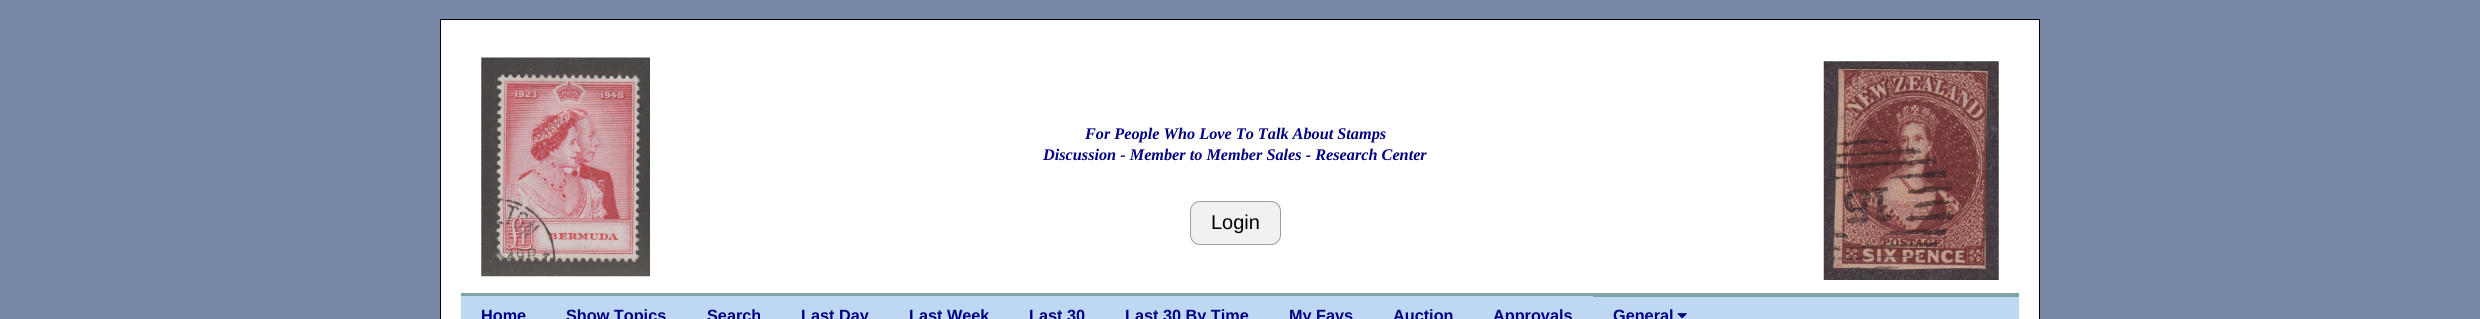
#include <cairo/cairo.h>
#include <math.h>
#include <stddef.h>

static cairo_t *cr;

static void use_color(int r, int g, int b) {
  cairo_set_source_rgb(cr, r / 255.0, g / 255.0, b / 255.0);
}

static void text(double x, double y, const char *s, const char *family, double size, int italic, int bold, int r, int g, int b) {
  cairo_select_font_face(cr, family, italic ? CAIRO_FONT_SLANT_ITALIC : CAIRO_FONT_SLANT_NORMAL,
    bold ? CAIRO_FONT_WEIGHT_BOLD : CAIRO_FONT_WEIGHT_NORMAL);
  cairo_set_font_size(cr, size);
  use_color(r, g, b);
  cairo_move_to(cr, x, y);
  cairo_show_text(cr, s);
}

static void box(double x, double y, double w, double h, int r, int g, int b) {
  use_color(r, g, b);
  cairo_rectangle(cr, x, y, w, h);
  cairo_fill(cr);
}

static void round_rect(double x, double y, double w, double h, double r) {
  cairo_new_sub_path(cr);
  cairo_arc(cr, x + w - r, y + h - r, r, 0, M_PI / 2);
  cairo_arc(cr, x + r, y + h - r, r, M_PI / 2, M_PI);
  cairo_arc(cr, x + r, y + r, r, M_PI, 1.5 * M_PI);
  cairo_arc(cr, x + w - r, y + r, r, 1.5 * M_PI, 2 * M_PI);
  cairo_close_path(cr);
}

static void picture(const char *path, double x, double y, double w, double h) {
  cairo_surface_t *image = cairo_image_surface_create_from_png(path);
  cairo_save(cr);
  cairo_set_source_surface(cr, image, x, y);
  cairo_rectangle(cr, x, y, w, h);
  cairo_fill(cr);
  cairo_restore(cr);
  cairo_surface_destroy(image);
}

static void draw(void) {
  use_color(119, 137, 166);
  cairo_paint(cr);
  use_color(255, 255, 255);
  cairo_rectangle(cr, 440.5, 19.5, 1599, 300);
  cairo_fill_preserve(cr);
  use_color(0, 0, 0);
  cairo_set_line_width(cr, 1);
  cairo_stroke(cr);
  picture("img_01.png", 481, 57, 169, 220);
  use_color(241, 241, 241);
  round_rect(1190.5, 201.5, 90, 43, 9.5);
  cairo_fill_preserve(cr);
  use_color(158, 158, 158);
  cairo_stroke(cr);
  picture("img_02.png", 1823, 61, 176, 219);
  box(1593, 297, 426, 22, 190, 216, 243);
  box(461, 293, 1558, 4, 125, 165, 168);
  box(461, 296, 1132, 23, 190, 216, 243);
  picture("img_03.png", 1677, 313, 10, 6);
  text(1085, 139, "For People Who Love To Talk About Stamps", "Liberation Serif", 16.25, 1, 1, 0, 0, 128);
  text(1043, 160, "Discussion - Member to Member Sales - Research Center", "Liberation Serif", 16.25, 1, 1, 0, 0, 128);
  text(1211, 229, "Login", "Liberation Sans", 20, 0, 0, 0, 0, 0);
  text(481, 321, "Home", "Liberation Sans", 16.25, 0, 1, 0, 0, 128);
  text(566, 321, "Show Topics", "Liberation Sans", 16.25, 0, 1, 0, 0, 128);
  text(707, 321, "Search", "Liberation Sans", 16.25, 0, 1, 0, 0, 128);
  text(801, 321, "Last Day", "Liberation Sans", 16.25, 0, 1, 0, 0, 128);
  text(909, 321, "Last Week", "Liberation Sans", 16.25, 0, 1, 0, 0, 128);
  text(1029, 321, "Last 30", "Liberation Sans", 16.25, 0, 1, 0, 0, 128);
  text(1125, 321, "Last 30 By Time", "Liberation Sans", 16.25, 0, 1, 0, 0, 128);
  text(1289, 321, "My Favs", "Liberation Sans", 16.25, 0, 1, 0, 0, 128);
  text(1393, 321, "Auction", "Liberation Sans", 16.25, 0, 1, 0, 0, 128);
  text(1493, 321, "Approvals", "Liberation Sans", 16.25, 0, 1, 0, 0, 128);
  text(1613, 321, "General", "Liberation Sans", 16.25, 0, 1, 0, 0, 128);
}

int main(void) {
  cairo_surface_t *surface = cairo_image_surface_create(CAIRO_FORMAT_RGB24, 2480, 319);
  cr = cairo_create(surface);
  cairo_font_options_t *options = cairo_font_options_create();
  cairo_font_options_set_hint_metrics(options, CAIRO_HINT_METRICS_OFF);
  cairo_font_options_set_hint_style(options, CAIRO_HINT_STYLE_NONE);
  cairo_set_font_options(cr, options);
  cairo_set_miter_limit(cr, 4);
  draw();
  cairo_surface_write_to_png(surface, "out.png");
  cairo_font_options_destroy(options);
  cairo_destroy(cr);
  cairo_surface_destroy(surface);
  return 0;
}
